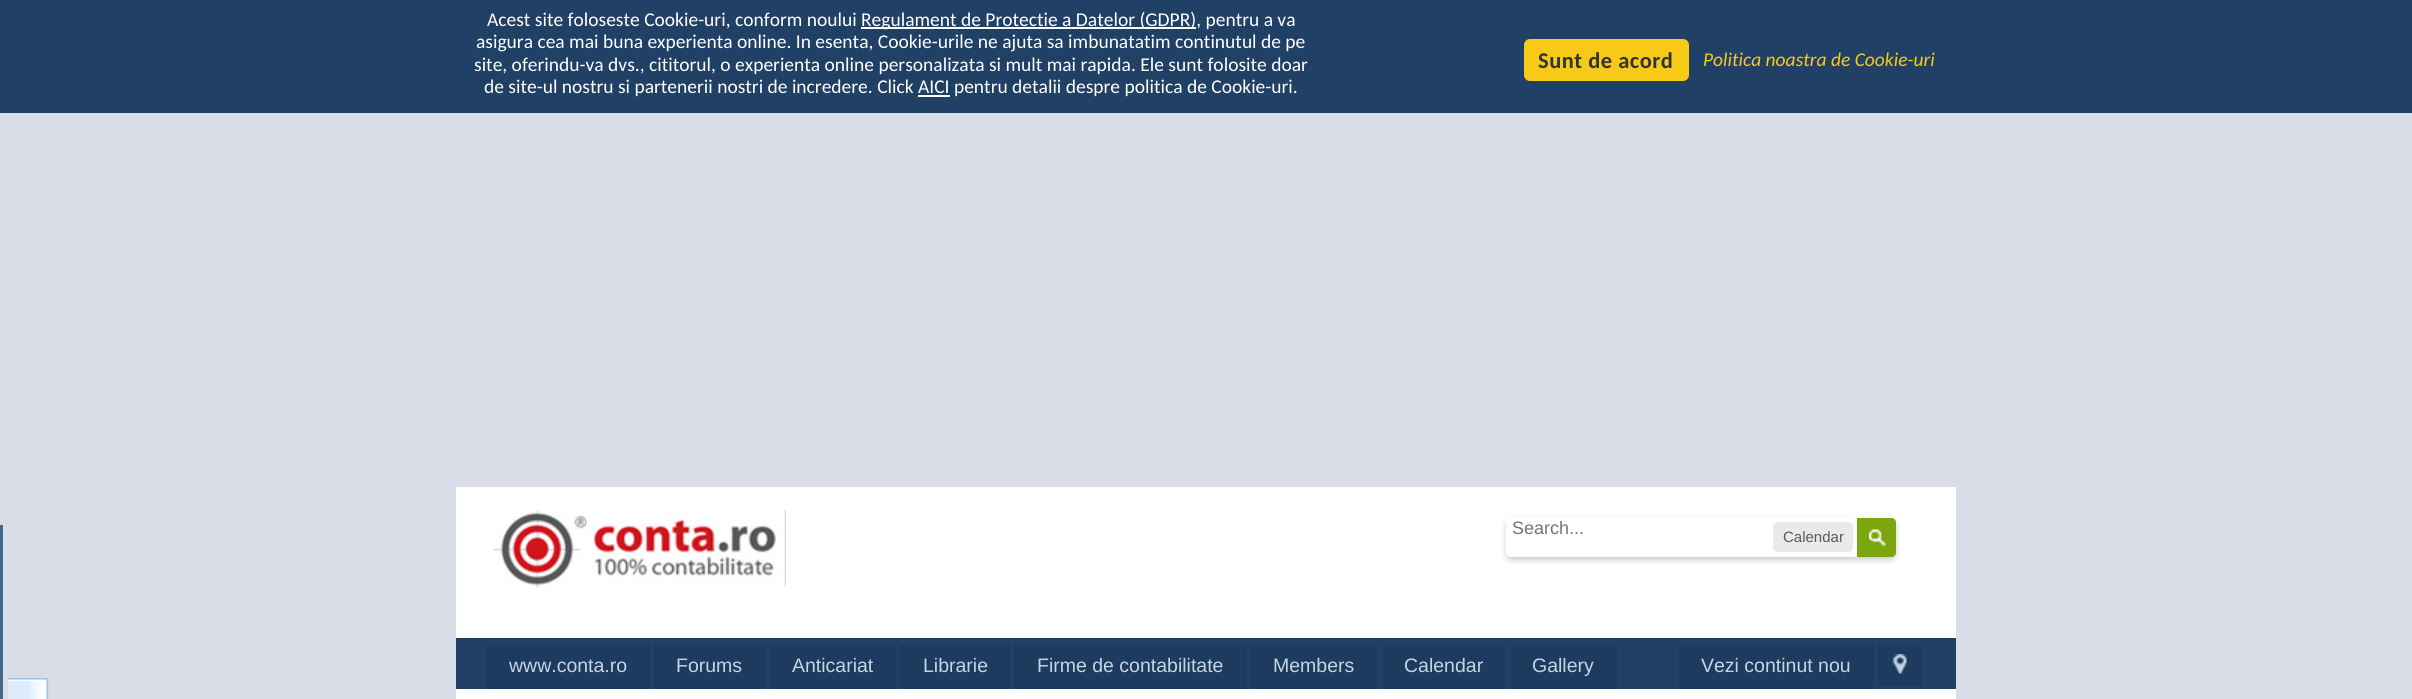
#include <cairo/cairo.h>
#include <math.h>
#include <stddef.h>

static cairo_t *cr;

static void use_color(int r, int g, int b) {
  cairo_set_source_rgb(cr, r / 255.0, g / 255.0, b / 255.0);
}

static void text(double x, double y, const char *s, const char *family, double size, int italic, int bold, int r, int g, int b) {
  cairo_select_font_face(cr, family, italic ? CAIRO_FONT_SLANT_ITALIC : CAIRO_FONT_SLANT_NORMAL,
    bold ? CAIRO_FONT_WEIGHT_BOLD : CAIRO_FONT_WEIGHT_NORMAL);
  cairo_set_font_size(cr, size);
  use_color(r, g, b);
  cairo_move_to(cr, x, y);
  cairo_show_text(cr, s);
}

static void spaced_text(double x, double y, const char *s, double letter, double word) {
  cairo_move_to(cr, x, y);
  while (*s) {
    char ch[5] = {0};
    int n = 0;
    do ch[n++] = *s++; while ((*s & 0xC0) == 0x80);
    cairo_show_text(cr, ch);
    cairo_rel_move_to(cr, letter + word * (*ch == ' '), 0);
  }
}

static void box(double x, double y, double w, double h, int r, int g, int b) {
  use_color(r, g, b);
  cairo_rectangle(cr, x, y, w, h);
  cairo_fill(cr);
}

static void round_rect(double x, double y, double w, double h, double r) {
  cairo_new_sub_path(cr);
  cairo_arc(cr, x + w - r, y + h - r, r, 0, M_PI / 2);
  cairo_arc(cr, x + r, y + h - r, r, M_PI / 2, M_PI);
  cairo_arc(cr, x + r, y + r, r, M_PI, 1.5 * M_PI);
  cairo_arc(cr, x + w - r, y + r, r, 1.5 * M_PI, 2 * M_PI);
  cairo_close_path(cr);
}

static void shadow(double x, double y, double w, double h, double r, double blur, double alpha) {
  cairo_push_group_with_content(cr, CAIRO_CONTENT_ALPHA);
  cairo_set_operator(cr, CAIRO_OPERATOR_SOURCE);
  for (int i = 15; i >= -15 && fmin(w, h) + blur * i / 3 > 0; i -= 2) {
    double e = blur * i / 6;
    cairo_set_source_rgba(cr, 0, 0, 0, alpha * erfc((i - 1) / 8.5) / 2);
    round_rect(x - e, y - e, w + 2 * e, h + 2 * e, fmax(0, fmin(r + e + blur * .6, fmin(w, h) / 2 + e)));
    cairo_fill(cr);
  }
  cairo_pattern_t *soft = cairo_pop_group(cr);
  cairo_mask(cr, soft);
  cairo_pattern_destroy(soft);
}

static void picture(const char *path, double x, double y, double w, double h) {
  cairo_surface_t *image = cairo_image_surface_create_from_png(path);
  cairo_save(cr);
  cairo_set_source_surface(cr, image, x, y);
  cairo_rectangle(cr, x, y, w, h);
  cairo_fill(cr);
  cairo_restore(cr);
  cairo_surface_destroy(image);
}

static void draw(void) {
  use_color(216, 221, 232);
  cairo_paint(cr);
  box(0, 0, 2412, 113, 32, 64, 102);
  box(861, 27, 335, 2, 255, 255, 255);
  box(918, 95, 32, 2, 255, 255, 255);
  use_color(247, 202, 24);
  round_rect(1524, 39, 165, 42, 6);
  cairo_fill(cr);
  box(456, 689, 1500, 10, 255, 255, 255);
  box(456, 487, 1500, 151, 255, 255, 255);
  box(456, 638, 1500, 1, 27, 55, 89);
  box(0, 525, 3, 174, 65, 104, 136);
  picture("img_01.png", 8, 678, 41, 21);
  picture("img_02.png", 493, 510, 293, 78);
  use_color(0, 0, 0);
  shadow(1506, 521, 390, 39, 6, 3, 0.2);
  use_color(255, 255, 255);
  cairo_new_path(cr);
  cairo_move_to(cr, 1511, 518);
  cairo_line_to(cr, 1890, 518);
  cairo_curve_to(cr, 1893.5, 518, 1896, 520.5, 1896, 524);
  cairo_line_to(cr, 1896, 551);
  cairo_curve_to(cr, 1896, 554.5, 1893.5, 557, 1890, 557);
  cairo_line_to(cr, 1511, 557);
  cairo_curve_to(cr, 1508, 557, 1506, 555, 1506, 552);
  cairo_line_to(cr, 1506, 523);
  cairo_curve_to(cr, 1506, 520, 1508, 518, 1511, 518);
  cairo_close_path(cr);
  cairo_fill(cr);
  use_color(123, 166, 13);
  cairo_new_path(cr);
  cairo_move_to(cr, 1857, 518);
  cairo_line_to(cr, 1891, 518);
  cairo_curve_to(cr, 1894, 518, 1896, 520, 1896, 523);
  cairo_line_to(cr, 1896, 552);
  cairo_curve_to(cr, 1896, 555, 1894, 557, 1891, 557);
  cairo_line_to(cr, 1857, 557);
  cairo_close_path(cr);
  cairo_fill(cr);
  picture("img_03.png", 1869, 529, 17, 17);
  cairo_new_path(cr);
  cairo_move_to(cr, 1858, 519);
  cairo_line_to(cr, 1891, 519);
  cairo_curve_to(cr, 1893, 519, 1895, 521, 1895, 523);
  cairo_line_to(cr, 1895, 552);
  cairo_curve_to(cr, 1895, 554, 1893, 556, 1891, 556);
  cairo_line_to(cr, 1858, 556);
  cairo_close_path(cr);
  cairo_stroke(cr);
  use_color(234, 234, 234);
  round_rect(1773, 522, 80, 30, 5);
  cairo_fill(cr);
  box(456, 639, 1500, 50, 32, 64, 102);
  box(486, 645, 164, 44, 28, 59, 95);
  box(654, 645, 111, 44, 28, 59, 95);
  box(770, 645, 126, 44, 28, 59, 95);
  box(900, 645, 110, 44, 28, 59, 95);
  box(1014, 645, 233, 44, 28, 59, 95);
  box(1251, 645, 126, 44, 28, 59, 95);
  box(1382, 645, 124, 44, 28, 59, 95);
  box(1511, 645, 106, 44, 28, 59, 95);
  box(1679, 645, 195, 44, 28, 59, 95);
  box(1878, 645, 44, 41, 28, 59, 95);
  picture("img_04.png", 1892, 654, 15, 20);
  text(487, 26, "Acest site foloseste Cookie-uri, conform noului", "Carlito", 19.5, 0, 0, 255, 255, 255);
  text(861, 26, "Regulament de Protectie a Datelor (GDPR), pentru a va", "Carlito", 19.5, 0, 0, 255, 255, 255);
  text(476, 48, "asigura cea mai buna experienta online. In esenta, Cookie-urile ne ajuta sa imbunatatim continutul de pe", "Carlito", 19.5, 0, 0, 255, 255, 255);
  text(474, 71, "site, oferindu-va dvs., cititorul, o experienta online personalizata si mult mai rapida. Ele sunt folosite doar", "Carlito", 19.5, 0, 0, 255, 255, 255);
  text(484, 93, "de site-ul nostru si partenerii nostri de incredere. Click AICI pentru detalii despre politica de Cookie-uri.", "Carlito", 19.5, 0, 0, 255, 255, 255);
  cairo_select_font_face(cr, "Carlito", CAIRO_FONT_SLANT_NORMAL, CAIRO_FONT_WEIGHT_BOLD);
  cairo_set_font_size(cr, 22.5);
  use_color(51, 51, 51);
  spaced_text(1538, 68, "Sunt de acord", 0.5, 0);
  text(1703, 66, "Politica noastra de Cookie-uri", "Carlito", 19.5, 1, 0, 247, 202, 24);
  text(1512, 534, "Search...", "Liberation Sans", 18, 0, 0, 117, 117, 117);
  text(1783, 542, "Calendar", "Liberation Sans", 15, 0, 0, 90, 90, 90);
  text(509, 672, "www.conta.ro", "Liberation Sans", 19.5, 0, 0, 197, 213, 226);
  text(676, 672, "Forums", "Liberation Sans", 19.5, 0, 0, 197, 213, 226);
  text(792, 672, "Anticariat", "Liberation Sans", 19.5, 0, 0, 197, 213, 226);
  text(923, 672, "Librarie", "Liberation Sans", 19.5, 0, 0, 197, 213, 226);
  text(1037, 672, "Firme de contabilitate", "Liberation Sans", 19.5, 0, 0, 197, 213, 226);
  text(1273, 672, "Members", "Liberation Sans", 19.5, 0, 0, 197, 213, 226);
  text(1404, 672, "Calendar", "Liberation Sans", 19.5, 0, 0, 197, 213, 226);
  text(1532, 672, "Gallery", "Liberation Sans", 19.5, 0, 0, 197, 213, 226);
  text(1701, 672, "Vezi continut nou", "Liberation Sans", 19.5, 0, 0, 197, 213, 226);
}

int main(void) {
  cairo_surface_t *surface = cairo_image_surface_create(CAIRO_FORMAT_RGB24, 2412, 699);
  cr = cairo_create(surface);
  cairo_font_options_t *options = cairo_font_options_create();
  cairo_font_options_set_hint_metrics(options, CAIRO_HINT_METRICS_OFF);
  cairo_font_options_set_hint_style(options, CAIRO_HINT_STYLE_NONE);
  cairo_set_font_options(cr, options);
  cairo_set_miter_limit(cr, 4);
  draw();
  cairo_surface_write_to_png(surface, "out.png");
  cairo_font_options_destroy(options);
  cairo_destroy(cr);
  cairo_surface_destroy(surface);
  return 0;
}
